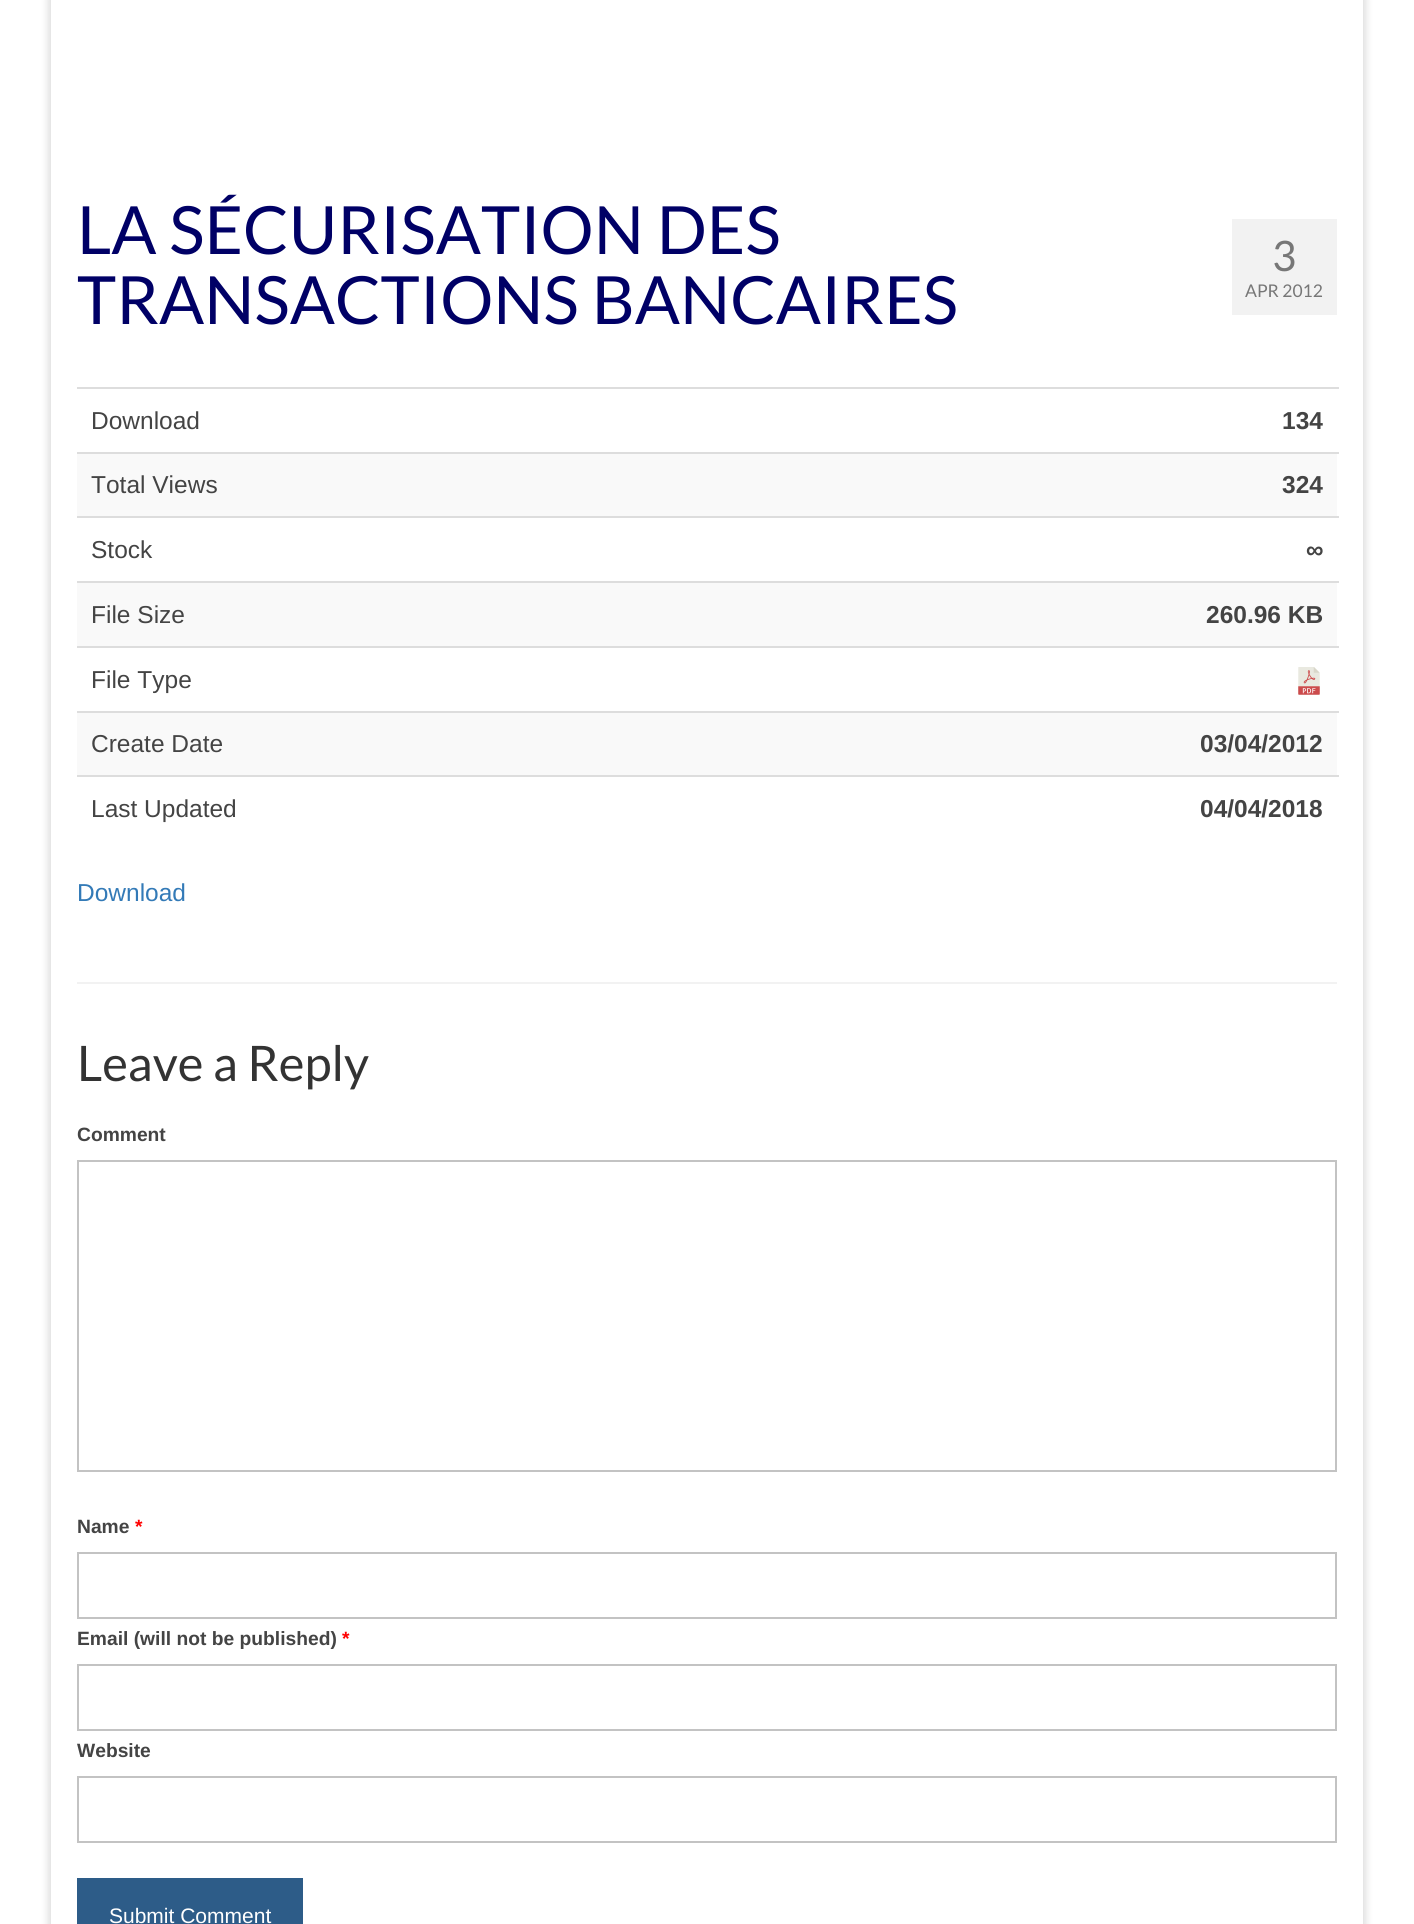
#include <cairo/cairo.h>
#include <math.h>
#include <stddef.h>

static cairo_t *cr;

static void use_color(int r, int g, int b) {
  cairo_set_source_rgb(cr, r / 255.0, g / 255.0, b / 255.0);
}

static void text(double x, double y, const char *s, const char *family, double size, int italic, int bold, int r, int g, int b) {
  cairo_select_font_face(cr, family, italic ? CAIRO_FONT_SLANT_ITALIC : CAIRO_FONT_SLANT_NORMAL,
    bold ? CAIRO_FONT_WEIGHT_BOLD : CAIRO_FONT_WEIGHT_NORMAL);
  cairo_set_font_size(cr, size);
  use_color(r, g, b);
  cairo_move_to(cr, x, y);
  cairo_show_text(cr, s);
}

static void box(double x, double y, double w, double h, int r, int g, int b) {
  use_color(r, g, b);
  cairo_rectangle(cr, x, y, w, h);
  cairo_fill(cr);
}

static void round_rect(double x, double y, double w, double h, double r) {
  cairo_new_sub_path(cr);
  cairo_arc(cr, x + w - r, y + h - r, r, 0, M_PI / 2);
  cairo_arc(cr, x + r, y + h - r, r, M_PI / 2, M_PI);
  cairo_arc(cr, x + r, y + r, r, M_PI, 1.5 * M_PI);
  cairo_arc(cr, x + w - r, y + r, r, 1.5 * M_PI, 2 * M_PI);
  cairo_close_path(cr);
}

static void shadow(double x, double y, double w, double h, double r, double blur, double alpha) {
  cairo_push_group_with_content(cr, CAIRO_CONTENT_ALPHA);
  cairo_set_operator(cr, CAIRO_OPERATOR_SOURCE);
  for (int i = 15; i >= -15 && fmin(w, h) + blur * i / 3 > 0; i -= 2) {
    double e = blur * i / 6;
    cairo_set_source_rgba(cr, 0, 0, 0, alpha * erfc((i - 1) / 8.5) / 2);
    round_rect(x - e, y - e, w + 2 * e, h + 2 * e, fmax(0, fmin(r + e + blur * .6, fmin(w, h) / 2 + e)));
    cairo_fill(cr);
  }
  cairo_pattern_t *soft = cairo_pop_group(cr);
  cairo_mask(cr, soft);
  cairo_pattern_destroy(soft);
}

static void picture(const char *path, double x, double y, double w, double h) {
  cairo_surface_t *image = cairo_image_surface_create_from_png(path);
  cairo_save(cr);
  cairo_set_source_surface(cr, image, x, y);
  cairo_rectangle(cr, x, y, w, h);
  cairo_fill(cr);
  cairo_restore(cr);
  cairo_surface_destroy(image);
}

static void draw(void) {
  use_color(255, 255, 255);
  cairo_paint(cr);
  cairo_save(cr);
  cairo_set_fill_rule(cr, CAIRO_FILL_RULE_EVEN_ODD);
  cairo_new_path(cr);
  cairo_move_to(cr, 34, 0);
  cairo_line_to(cr, 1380, 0);
  cairo_line_to(cr, 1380, 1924);
  cairo_line_to(cr, 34, 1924);
  cairo_close_path(cr);
  cairo_move_to(cr, 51, 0);
  cairo_line_to(cr, 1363, 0);
  cairo_line_to(cr, 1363, 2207);
  cairo_line_to(cr, 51, 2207);
  cairo_close_path(cr);
  cairo_clip(cr);
  use_color(0, 0, 0);
  shadow(49, -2, 1316, 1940, 0, 4.5, 0.16);
  cairo_restore(cr);
  box(1232, 219, 105, 96, 242, 242, 242);
  box(77, 387, 1262, 2, 221, 221, 221);
  box(77, 454, 1260, 62, 249, 249, 249);
  box(77, 452, 1262, 2, 221, 221, 221);
  box(77, 516, 1262, 2, 221, 221, 221);
  box(77, 583, 1260, 63, 249, 249, 249);
  box(77, 581, 1262, 2, 221, 221, 221);
  box(77, 646, 1262, 2, 221, 221, 221);
  picture("img_01.png", 1298, 667, 22, 28);
  box(77, 713, 1260, 62, 249, 249, 249);
  box(77, 711, 1262, 2, 221, 221, 221);
  box(77, 775, 1262, 2, 221, 221, 221);
  box(77, 982, 1260, 2, 242, 242, 242);
  cairo_rectangle(cr, 78, 1161, 1258, 310);
  use_color(195, 195, 195);
  cairo_stroke(cr);
  cairo_rectangle(cr, 78, 1553, 1258, 65);
  cairo_stroke(cr);
  cairo_rectangle(cr, 78, 1665, 1258, 65);
  cairo_stroke(cr);
  cairo_rectangle(cr, 78, 1777, 1258, 65);
  cairo_stroke(cr);
  box(77, 1878, 226, 46, 45, 92, 136);
  text(77, 254, "LA SÉCURISATION DES", "Lato", 66.5, 0, 0, 0, 0, 102);
  text(77, 324, "TRANSACTIONS BANCAIRES", "Lato", 66.5, 0, 0, 0, 0, 102);
  text(1272, 271, "3", "Lato", 42, 0, 0, 119, 119, 119);
  text(1245, 297, "APR 2012", "Lato", 17.5, 0, 0, 119, 119, 119);
  text(91, 429, "Download", "Liberation Sans", 24.5, 0, 0, 68, 68, 68);
  text(1282, 429, "134", "Liberation Sans", 24.5, 0, 1, 68, 68, 68);
  text(91, 493, "Total Views", "Liberation Sans", 24.5, 0, 0, 68, 68, 68);
  text(1282, 493, "324", "Liberation Sans", 24.5, 0, 1, 68, 68, 68);
  text(91, 558, "Stock", "Liberation Sans", 24.5, 0, 0, 68, 68, 68);
  text(1306, 558, "∞", "Liberation Sans", 24.5, 0, 1, 68, 68, 68);
  text(91, 623, "File Size", "Liberation Sans", 24.5, 0, 0, 68, 68, 68);
  text(1206, 623, "260.96 KB", "Liberation Sans", 24.5, 0, 1, 68, 68, 68);
  text(91, 688, "File Type", "Liberation Sans", 24.5, 0, 0, 68, 68, 68);
  text(91, 752, "Create Date", "Liberation Sans", 24.5, 0, 0, 68, 68, 68);
  text(1200, 752, "03/04/2012", "Liberation Sans", 24.5, 0, 1, 68, 68, 68);
  text(91, 817, "Last Updated", "Liberation Sans", 24.5, 0, 0, 68, 68, 68);
  text(1200, 817, "04/04/2018", "Liberation Sans", 24.5, 0, 1, 68, 68, 68);
  text(77, 901, "Download", "Liberation Sans", 24.5, 0, 0, 51, 122, 183);
  text(77, 1081, "Leave a Reply", "Lato", 49, 0, 0, 51, 51, 51);
  text(77, 1141, "Comment", "Liberation Sans", 19.25, 0, 1, 68, 68, 68);
  text(77, 1533, "Name", "Liberation Sans", 19.25, 0, 1, 68, 68, 68);
  text(135, 1533, "*", "Liberation Sans", 19.25, 0, 1, 255, 0, 0);
  text(77, 1645, "Email (will not be published)", "Liberation Sans", 19.25, 0, 1, 68, 68, 68);
  text(342, 1645, "*", "Liberation Sans", 19.25, 0, 1, 255, 0, 0);
  text(77, 1757, "Website", "Liberation Sans", 19.25, 0, 1, 68, 68, 68);
  text(109, 1923, "Submit Comment", "Liberation Sans", 21, 0, 0, 255, 255, 255);
}

int main(void) {
  cairo_surface_t *surface = cairo_image_surface_create(CAIRO_FORMAT_RGB24, 1414, 1924);
  cr = cairo_create(surface);
  cairo_font_options_t *options = cairo_font_options_create();
  cairo_font_options_set_hint_metrics(options, CAIRO_HINT_METRICS_OFF);
  cairo_font_options_set_hint_style(options, CAIRO_HINT_STYLE_NONE);
  cairo_set_font_options(cr, options);
  cairo_set_miter_limit(cr, 4);
  draw();
  cairo_surface_write_to_png(surface, "out.png");
  cairo_font_options_destroy(options);
  cairo_destroy(cr);
  cairo_surface_destroy(surface);
  return 0;
}
